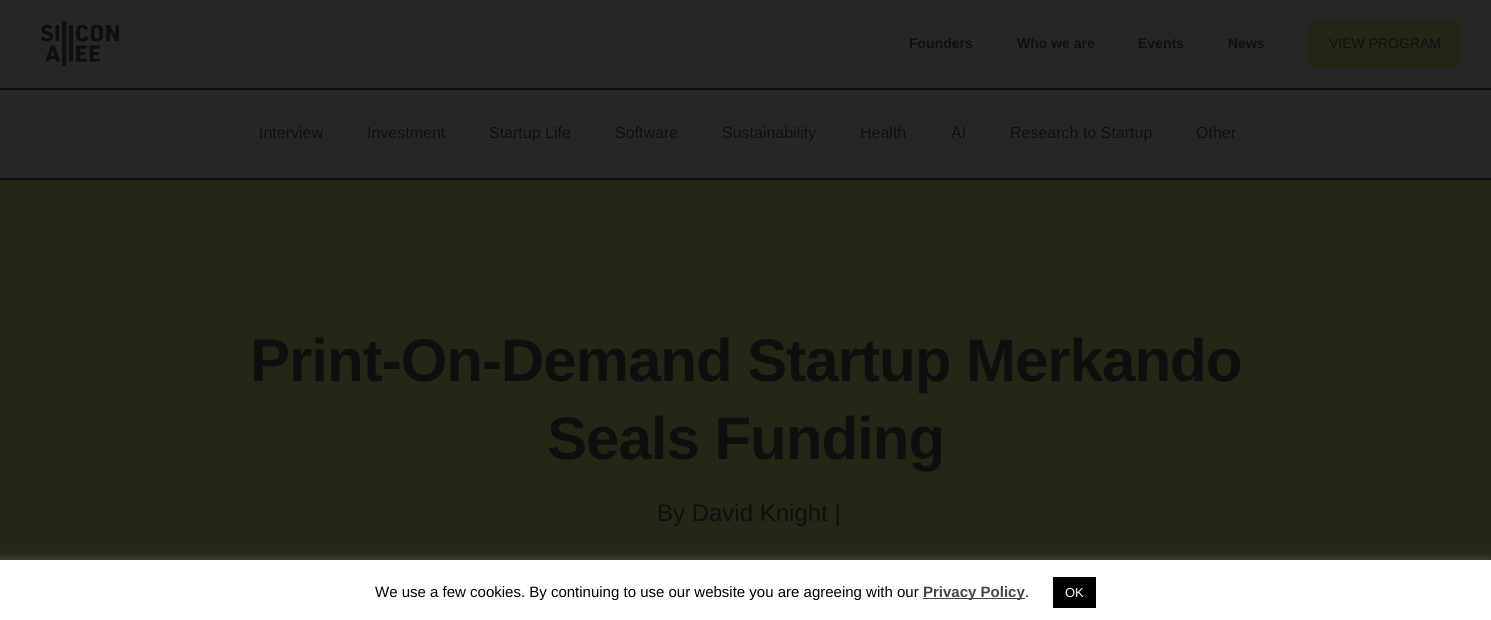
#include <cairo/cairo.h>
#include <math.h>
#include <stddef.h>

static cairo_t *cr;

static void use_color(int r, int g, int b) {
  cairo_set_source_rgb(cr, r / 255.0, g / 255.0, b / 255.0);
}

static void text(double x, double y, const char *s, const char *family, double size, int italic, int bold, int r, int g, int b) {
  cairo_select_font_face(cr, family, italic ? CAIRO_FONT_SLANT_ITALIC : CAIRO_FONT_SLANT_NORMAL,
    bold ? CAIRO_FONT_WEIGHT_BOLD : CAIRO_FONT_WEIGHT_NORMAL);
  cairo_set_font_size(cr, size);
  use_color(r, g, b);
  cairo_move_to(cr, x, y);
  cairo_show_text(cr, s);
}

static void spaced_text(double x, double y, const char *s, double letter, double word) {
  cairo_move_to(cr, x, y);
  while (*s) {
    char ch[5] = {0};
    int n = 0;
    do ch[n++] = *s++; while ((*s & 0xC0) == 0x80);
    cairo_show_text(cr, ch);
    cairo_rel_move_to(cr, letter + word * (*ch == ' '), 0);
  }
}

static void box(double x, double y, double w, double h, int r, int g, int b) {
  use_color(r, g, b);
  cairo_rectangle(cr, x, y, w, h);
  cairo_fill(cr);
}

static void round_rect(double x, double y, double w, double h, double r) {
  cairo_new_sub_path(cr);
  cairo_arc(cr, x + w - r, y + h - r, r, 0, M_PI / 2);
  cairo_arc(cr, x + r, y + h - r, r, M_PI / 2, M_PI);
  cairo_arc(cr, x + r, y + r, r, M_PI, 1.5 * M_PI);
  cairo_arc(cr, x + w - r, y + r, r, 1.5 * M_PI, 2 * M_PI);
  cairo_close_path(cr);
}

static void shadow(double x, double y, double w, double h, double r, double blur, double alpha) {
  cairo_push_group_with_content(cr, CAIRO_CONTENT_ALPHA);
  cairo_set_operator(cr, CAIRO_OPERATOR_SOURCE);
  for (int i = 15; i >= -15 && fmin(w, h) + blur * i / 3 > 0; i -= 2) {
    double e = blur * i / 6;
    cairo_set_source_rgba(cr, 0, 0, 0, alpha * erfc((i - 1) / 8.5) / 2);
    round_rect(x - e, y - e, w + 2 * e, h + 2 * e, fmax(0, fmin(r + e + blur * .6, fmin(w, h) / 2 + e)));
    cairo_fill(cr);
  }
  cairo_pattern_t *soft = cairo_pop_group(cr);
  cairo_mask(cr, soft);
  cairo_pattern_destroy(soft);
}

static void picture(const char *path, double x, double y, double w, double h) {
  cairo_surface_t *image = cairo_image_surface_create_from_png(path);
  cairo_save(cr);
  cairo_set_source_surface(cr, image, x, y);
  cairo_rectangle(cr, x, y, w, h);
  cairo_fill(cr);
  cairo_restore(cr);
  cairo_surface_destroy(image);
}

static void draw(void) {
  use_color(38, 38, 38);
  cairo_paint(cr);
  box(0, 88, 1491, 2, 15, 15, 15);
  picture("img_01.png", 40, 20, 80, 46);
  box(1309, 22, 152, 45, 35, 38, 22);
  box(0, 178, 1491, 2, 15, 15, 15);
  box(0, 180, 1491, 380, 35, 38, 22);
  use_color(172, 171, 171);
  shadow(0, 559, 1491, 60, 0, 5, 0.3);
  box(0, 560, 1491, 60, 255, 255, 255);
  box(923, 598, 102, 1, 68, 68, 68);
  box(1053, 577, 43, 31, 0, 0, 0);
  text(909, 48, "Founders", "Liberation Sans", 14, 0, 1, 15, 15, 15);
  text(1017, 48, "Who we are", "Liberation Sans", 14, 0, 1, 15, 15, 15);
  text(1138, 48, "Events", "Liberation Sans", 14, 0, 1, 15, 15, 15);
  text(1228, 48, "News", "Liberation Sans", 14, 0, 1, 15, 15, 15);
  text(1329, 48, "VIEW PROGRAM", "Liberation Sans", 14, 0, 0, 15, 15, 15);
  text(259, 138, "Interview", "Liberation Sans", 16, 0, 0, 15, 15, 15);
  text(367, 138, "Investment", "Liberation Sans", 16, 0, 0, 15, 15, 15);
  text(489, 138, "Startup Life", "Liberation Sans", 16, 0, 0, 15, 15, 15);
  text(615, 138, "Software", "Liberation Sans", 16, 0, 0, 15, 15, 15);
  text(722, 138, "Sustainability", "Liberation Sans", 16, 0, 0, 15, 15, 15);
  text(860, 138, "Health", "Liberation Sans", 16, 0, 0, 15, 15, 15);
  text(951, 138, "AI", "Liberation Sans", 16, 0, 0, 15, 15, 15);
  text(1010, 138, "Research to Startup", "Liberation Sans", 16, 0, 0, 15, 15, 15);
  text(1196, 138, "Other", "Liberation Sans", 16, 0, 0, 15, 15, 15);
  cairo_select_font_face(cr, "Liberation Sans", CAIRO_FONT_SLANT_NORMAL, CAIRO_FONT_WEIGHT_BOLD);
  cairo_set_font_size(cr, 60);
  spaced_text(250, 381, "Print-On-Demand Startup Merkando", -1, 0);
  spaced_text(547, 459, "Seals Funding", -1, 0);
  text(657, 521, "By David Knight |", "Liberation Sans", 24, 0, 0, 15, 15, 15);
  text(375, 597, "We use a few cookies. By continuing to use our website you are agreeing with our", "Liberation Sans", 15, 0, 0, 0, 0, 0);
  text(923, 597, "Privacy Policy", "Liberation Sans", 15, 0, 1, 68, 68, 68);
  text(1025, 597, ".", "Liberation Sans", 15, 0, 0, 0, 0, 0);
  text(1065, 597, "OK", "Liberation Sans", 13, 0, 0, 255, 255, 255);
}

int main(void) {
  cairo_surface_t *surface = cairo_image_surface_create(CAIRO_FORMAT_RGB24, 1491, 620);
  cr = cairo_create(surface);
  cairo_font_options_t *options = cairo_font_options_create();
  cairo_font_options_set_hint_metrics(options, CAIRO_HINT_METRICS_OFF);
  cairo_font_options_set_hint_style(options, CAIRO_HINT_STYLE_NONE);
  cairo_set_font_options(cr, options);
  cairo_set_miter_limit(cr, 4);
  draw();
  cairo_surface_write_to_png(surface, "out.png");
  cairo_font_options_destroy(options);
  cairo_destroy(cr);
  cairo_surface_destroy(surface);
  return 0;
}
